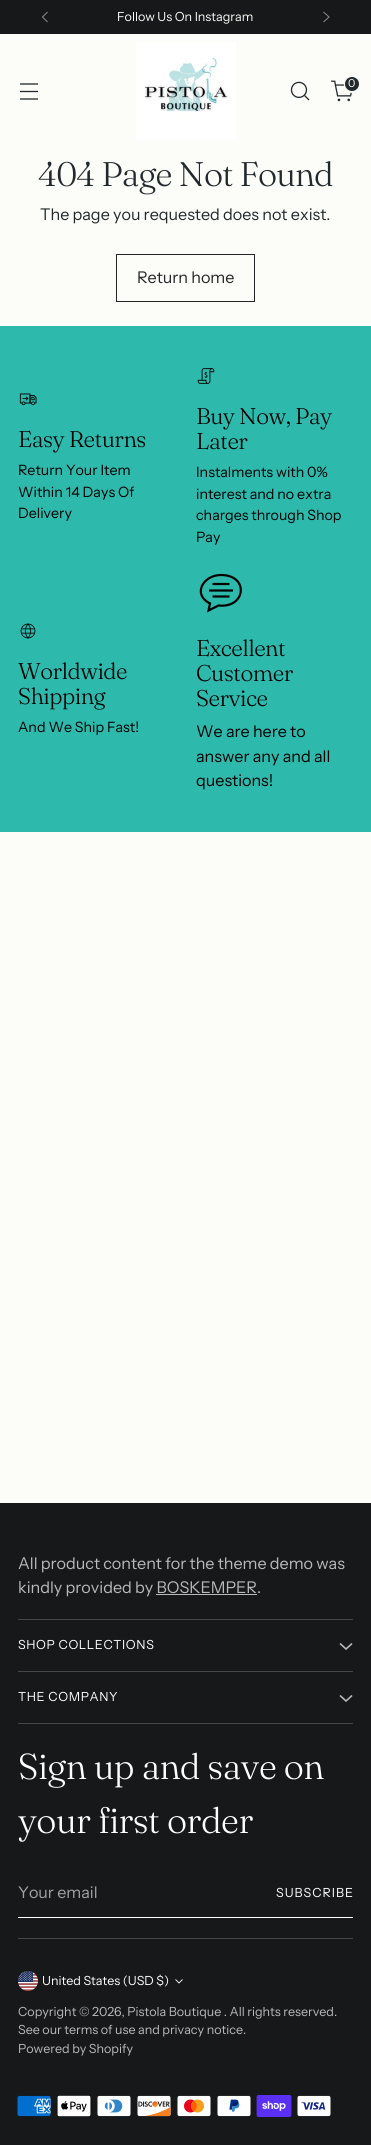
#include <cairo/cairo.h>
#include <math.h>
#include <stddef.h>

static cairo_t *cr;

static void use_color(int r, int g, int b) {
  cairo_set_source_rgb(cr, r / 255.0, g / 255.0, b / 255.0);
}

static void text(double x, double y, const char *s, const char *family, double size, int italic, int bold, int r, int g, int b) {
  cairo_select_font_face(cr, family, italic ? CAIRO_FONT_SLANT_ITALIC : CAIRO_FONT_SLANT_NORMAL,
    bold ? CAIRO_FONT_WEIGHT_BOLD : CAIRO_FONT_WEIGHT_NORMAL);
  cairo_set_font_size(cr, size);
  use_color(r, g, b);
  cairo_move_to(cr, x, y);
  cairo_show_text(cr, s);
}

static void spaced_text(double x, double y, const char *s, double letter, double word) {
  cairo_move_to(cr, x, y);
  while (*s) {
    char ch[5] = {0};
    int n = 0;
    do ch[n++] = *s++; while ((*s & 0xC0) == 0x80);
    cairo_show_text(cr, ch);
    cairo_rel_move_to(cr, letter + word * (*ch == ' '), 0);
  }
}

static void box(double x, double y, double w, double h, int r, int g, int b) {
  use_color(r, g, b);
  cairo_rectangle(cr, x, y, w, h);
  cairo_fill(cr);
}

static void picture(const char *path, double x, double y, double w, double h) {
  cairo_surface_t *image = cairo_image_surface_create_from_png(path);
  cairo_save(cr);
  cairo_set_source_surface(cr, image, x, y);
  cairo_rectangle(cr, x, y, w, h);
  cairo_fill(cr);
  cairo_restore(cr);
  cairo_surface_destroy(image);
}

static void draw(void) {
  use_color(252, 252, 249);
  cairo_paint(cr);
  box(0, 0, 371, 34, 23, 24, 25);
  cairo_new_path(cr);
  cairo_move_to(cr, 47.5, 12);
  cairo_line_to(cr, 42.5, 17);
  cairo_line_to(cr, 47.5, 22);
  use_color(138, 138, 137);
  cairo_set_line_width(cr, 1);
  cairo_stroke(cr);
  cairo_new_path(cr);
  cairo_move_to(cr, 323.5, 22);
  cairo_line_to(cr, 329, 17);
  cairo_line_to(cr, 323.5, 12);
  cairo_stroke(cr);
  cairo_new_path(cr);
  cairo_move_to(cr, 20, 91.5);
  cairo_line_to(cr, 38, 91.5);
  cairo_move_to(cr, 20, 84);
  cairo_line_to(cr, 38, 84);
  cairo_move_to(cr, 20, 99);
  cairo_line_to(cr, 38, 99);
  use_color(34, 41, 45);
  cairo_set_line_width(cr, 1.3);
  cairo_stroke(cr);
  picture("img_01.png", 136, 42, 100, 98);
  picture("img_02.png", 290, 81, 20, 20);
  picture("img_03.png", 331, 80, 22, 22);
  cairo_arc(cr, 352.5, 84.5, 7.5, 0, 2 * M_PI);
  use_color(252, 252, 249);
  cairo_set_line_width(cr, 2);
  cairo_stroke(cr);
  use_color(34, 41, 45);
  cairo_arc(cr, 352, 84, 7, 0, 2 * M_PI);
  cairo_fill(cr);
  cairo_rectangle(cr, 116.5, 254.5, 138, 47);
  use_color(36, 37, 38);
  cairo_set_line_width(cr, 1);
  cairo_stroke(cr);
  box(0, 326, 371, 506, 45, 185, 172);
  picture("img_04.png", 19, 393, 18, 13);
  picture("img_05.png", 197, 368, 18, 16);
  picture("img_06.png", 20, 623, 16, 16);
  cairo_new_path(cr);
  cairo_move_to(cr, 209, 590.5);
  cairo_line_to(cr, 233, 590.5);
  cairo_move_to(cr, 212.5, 584);
  cairo_line_to(cr, 229.5, 584);
  cairo_move_to(cr, 212.5, 596.5);
  cairo_line_to(cr, 229.5, 596.5);
  use_color(0, 0, 0);
  cairo_set_line_width(cr, 2.2);
  cairo_stroke(cr);
  cairo_new_path(cr);
  cairo_move_to(cr, 221, 575);
  cairo_curve_to(cr, 203, 575, 192, 594.5, 210, 603.5);
  cairo_line_to(cr, 208.5, 610.5);
  cairo_line_to(cr, 218.5, 605.5);
  cairo_curve_to(cr, 246, 608.5, 249.5, 575, 221, 575);
  cairo_close_path(cr);
  cairo_set_line_cap(cr, CAIRO_LINE_CAP_ROUND);
  cairo_stroke(cr);
  box(0, 1503, 371, 642, 23, 24, 25);
  box(18, 1619, 335, 1, 69, 70, 71);
  box(156, 1594, 101, 1, 185, 186, 186);
  box(18, 1671, 335, 1, 69, 70, 71);
  cairo_new_path(cr);
  cairo_move_to(cr, 340, 1643.5);
  cairo_line_to(cr, 346, 1649);
  cairo_line_to(cr, 352, 1643.5);
  cairo_move_to(cr, 340, 1695.5);
  cairo_line_to(cr, 346, 1701);
  cairo_line_to(cr, 352, 1695.5);
  use_color(185, 186, 186);
  cairo_set_line_width(cr, 1.6);
  cairo_set_line_cap(cr, CAIRO_LINE_CAP_BUTT);
  cairo_stroke(cr);
  box(18, 1723, 335, 1, 69, 70, 71);
  box(18, 1938, 335, 1, 69, 70, 71);
  box(18, 1917, 335, 1, 255, 255, 255);
  picture("img_07.png", 18, 1971, 20, 20);
  cairo_new_path(cr);
  cairo_move_to(cr, 175.5, 1979.5);
  cairo_line_to(cr, 179, 1983);
  cairo_line_to(cr, 182.5, 1979.5);
  cairo_set_line_width(cr, 0.9);
  cairo_stroke(cr);
  picture("img_08.png", 17, 2095, 34, 22);
  picture("img_09.png", 56, 2095, 36, 22);
  picture("img_10.png", 97, 2095, 34, 22);
  picture("img_11.png", 137, 2095, 34, 22);
  picture("img_12.png", 177, 2095, 34, 22);
  picture("img_13.png", 217, 2095, 34, 22);
  picture("img_14.png", 256, 2095, 36, 22);
  picture("img_15.png", 297, 2095, 34, 22);
  text(117, 21, "Follow Us On Instagram", "Instrument Sans", 12.55, 0, 0, 252, 252, 249);
  text(348, 87, "0", "Instrument Sans", 11, 0, 0, 252, 252, 249);
  cairo_select_font_face(cr, "Fraunces Light", CAIRO_FONT_SLANT_NORMAL, CAIRO_FONT_WEIGHT_NORMAL);
  cairo_set_font_size(cr, 34.1);
  use_color(34, 41, 45);
  spaced_text(38, 186, "404 Page Not Found", -0.8, 0);
  text(40, 220, "The page you requested does not exist.", "Instrument Sans", 16.15, 0, 0, 34, 41, 45);
  text(137, 283, "Return home", "Instrument Sans", 16.15, 0, 0, 36, 37, 38);
  cairo_select_font_face(cr, "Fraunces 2 Light", CAIRO_FONT_SLANT_NORMAL, CAIRO_FONT_WEIGHT_NORMAL);
  cairo_set_font_size(cr, 22.75);
  use_color(0, 0, 0);
  spaced_text(18, 447, "Easy Returns", -0.5, 0);
  text(18, 475, "Return Your Item", "Instrument Sans", 14.25, 0, 0, 0, 0, 0);
  text(18, 497, "Within 14 Days Of", "Instrument Sans", 14.25, 0, 0, 0, 0, 0);
  text(18, 518, "Delivery", "Instrument Sans", 14.25, 0, 0, 0, 0, 0);
  cairo_select_font_face(cr, "Fraunces 2 Light", CAIRO_FONT_SLANT_NORMAL, CAIRO_FONT_WEIGHT_NORMAL);
  cairo_set_font_size(cr, 22.75);
  spaced_text(196, 424, "Buy Now, Pay", -0.5, 0);
  spaced_text(196, 449, "Later", -0.5, 0);
  text(196, 477, "Instalments with 0%", "Instrument Sans", 14.25, 0, 0, 0, 0, 0);
  text(196, 499, "interest and no extra", "Instrument Sans", 14.25, 0, 0, 0, 0, 0);
  text(196, 520, "charges through Shop", "Instrument Sans", 14.25, 0, 0, 0, 0, 0);
  text(196, 542, "Pay", "Instrument Sans", 14.25, 0, 0, 0, 0, 0);
  cairo_select_font_face(cr, "Fraunces 2 Light", CAIRO_FONT_SLANT_NORMAL, CAIRO_FONT_WEIGHT_NORMAL);
  cairo_set_font_size(cr, 22.75);
  spaced_text(18, 679, "Worldwide", -0.5, 0);
  spaced_text(18, 704, "Shipping", -0.5, 0);
  text(18, 732, "And We Ship Fast!", "Instrument Sans", 14.25, 0, 0, 0, 0, 0);
  cairo_select_font_face(cr, "Fraunces 2 Light", CAIRO_FONT_SLANT_NORMAL, CAIRO_FONT_WEIGHT_NORMAL);
  cairo_set_font_size(cr, 22.75);
  spaced_text(196, 656, "Excellent", -0.5, 0);
  spaced_text(196, 681, "Customer", -0.5, 0);
  spaced_text(196, 706, "Service", -0.5, 0);
  text(196, 737, "We are here to", "Instrument Sans", 16.15, 0, 0, 0, 0, 0);
  text(196, 762, "answer any and all", "Instrument Sans", 16.15, 0, 0, 0, 0, 0);
  text(196, 786, "questions!", "Instrument Sans", 16.15, 0, 0, 0, 0, 0);
  text(18, 1569, "All product content for the theme demo was", "Instrument Sans", 16.15, 0, 0, 185, 186, 186);
  text(18, 1593, "kindly provided by BOSKEMPER.", "Instrument Sans", 16.15, 0, 0, 185, 186, 186);
  cairo_set_font_size(cr, 12.55);
  use_color(255, 255, 255);
  spaced_text(18, 1649, "SHOP COLLECTIONS", 0.6, 0);
  spaced_text(18, 1701, "THE COMPANY", 0.6, 0);
  cairo_select_font_face(cr, "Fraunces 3 Light", CAIRO_FONT_SLANT_NORMAL, CAIRO_FONT_WEIGHT_NORMAL);
  cairo_set_font_size(cr, 36);
  spaced_text(18, 1779, "Sign up and save on", -0.5, 0);
  spaced_text(18, 1833, "your first order", -0.5, 0);
  text(18, 1898, "Your email", "Instrument Sans", 16.15, 0, 0, 162, 163, 163);
  cairo_set_font_size(cr, 12.55);
  use_color(255, 255, 255);
  spaced_text(276, 1897, "SUBSCRIBE", 1, 0);
  text(42, 1985, "United States (USD $)", "Instrument Sans", 12.55, 0, 0, 255, 255, 255);
  text(18, 2016, "Copyright © 2026, Pistola Boutique . All rights reserved.", "Instrument Sans", 12.55, 0, 0, 185, 186, 186);
  text(18, 2034, "See our terms of use and privacy notice.", "Instrument Sans", 12.55, 0, 0, 185, 186, 186);
  text(18, 2053, "Powered by Shopify", "Instrument Sans", 12.55, 0, 0, 185, 186, 186);
}

int main(void) {
  cairo_surface_t *surface = cairo_image_surface_create(CAIRO_FORMAT_RGB24, 371, 2145);
  cr = cairo_create(surface);
  cairo_font_options_t *options = cairo_font_options_create();
  cairo_font_options_set_hint_metrics(options, CAIRO_HINT_METRICS_OFF);
  cairo_font_options_set_hint_style(options, CAIRO_HINT_STYLE_NONE);
  cairo_set_font_options(cr, options);
  cairo_set_miter_limit(cr, 4);
  draw();
  cairo_surface_write_to_png(surface, "out.png");
  cairo_font_options_destroy(options);
  cairo_destroy(cr);
  cairo_surface_destroy(surface);
  return 0;
}
